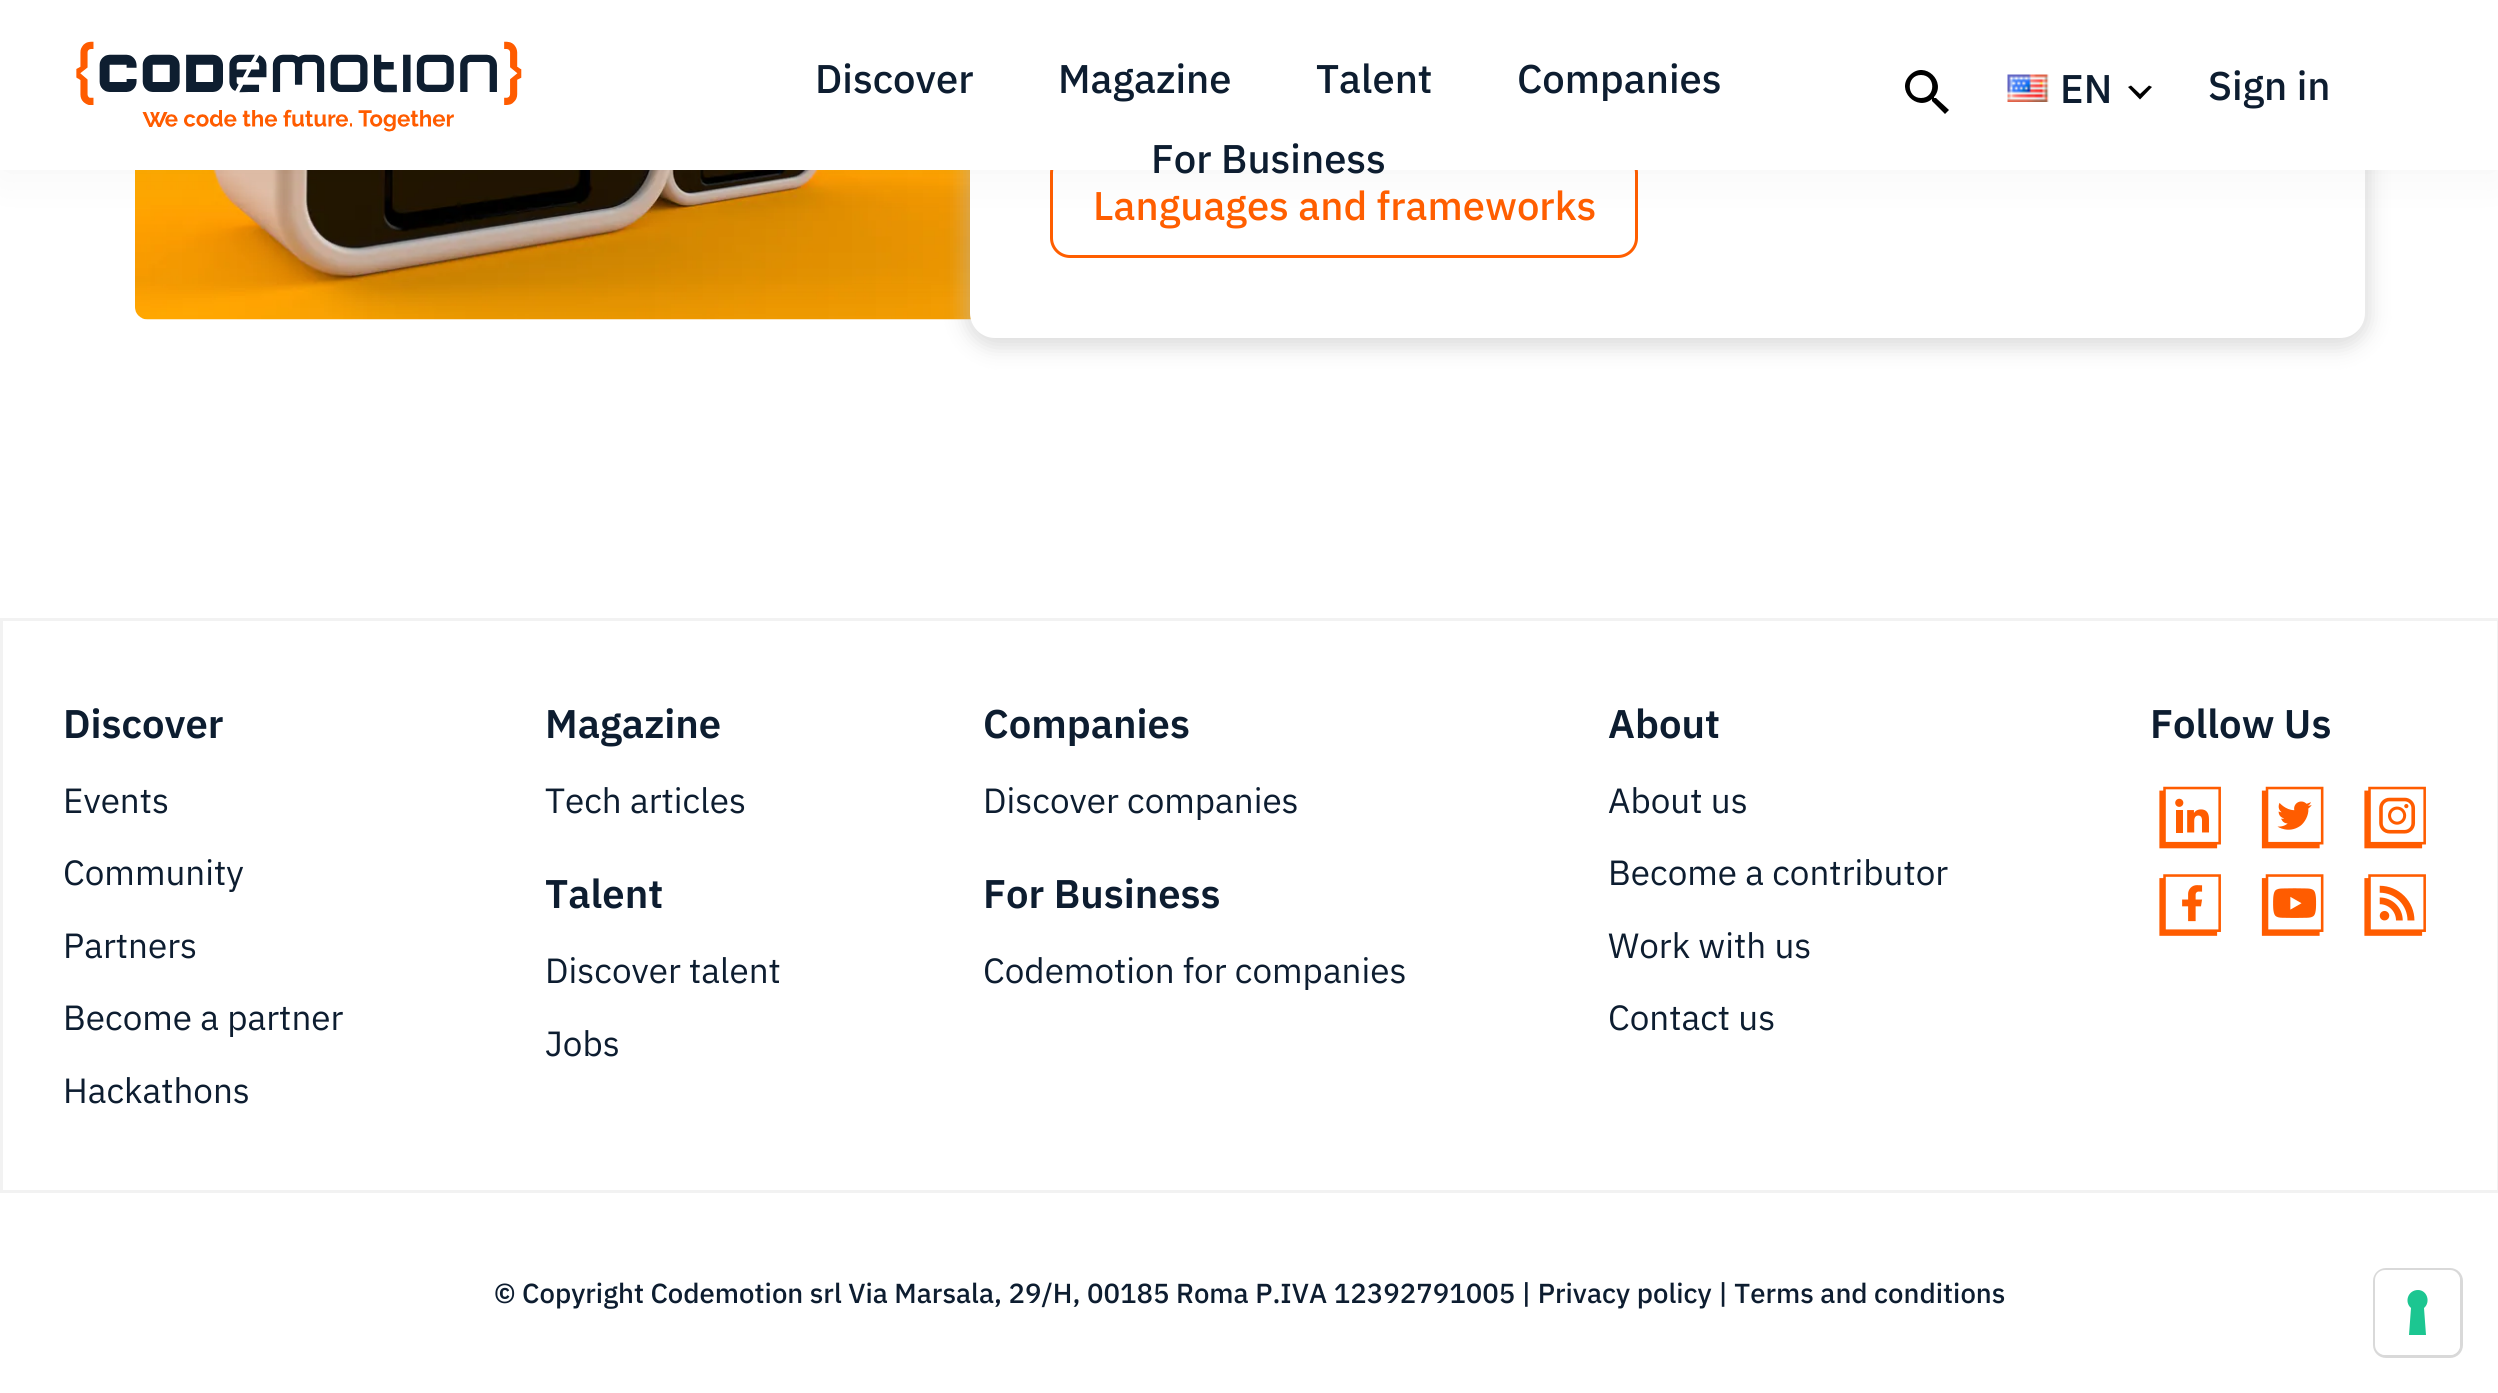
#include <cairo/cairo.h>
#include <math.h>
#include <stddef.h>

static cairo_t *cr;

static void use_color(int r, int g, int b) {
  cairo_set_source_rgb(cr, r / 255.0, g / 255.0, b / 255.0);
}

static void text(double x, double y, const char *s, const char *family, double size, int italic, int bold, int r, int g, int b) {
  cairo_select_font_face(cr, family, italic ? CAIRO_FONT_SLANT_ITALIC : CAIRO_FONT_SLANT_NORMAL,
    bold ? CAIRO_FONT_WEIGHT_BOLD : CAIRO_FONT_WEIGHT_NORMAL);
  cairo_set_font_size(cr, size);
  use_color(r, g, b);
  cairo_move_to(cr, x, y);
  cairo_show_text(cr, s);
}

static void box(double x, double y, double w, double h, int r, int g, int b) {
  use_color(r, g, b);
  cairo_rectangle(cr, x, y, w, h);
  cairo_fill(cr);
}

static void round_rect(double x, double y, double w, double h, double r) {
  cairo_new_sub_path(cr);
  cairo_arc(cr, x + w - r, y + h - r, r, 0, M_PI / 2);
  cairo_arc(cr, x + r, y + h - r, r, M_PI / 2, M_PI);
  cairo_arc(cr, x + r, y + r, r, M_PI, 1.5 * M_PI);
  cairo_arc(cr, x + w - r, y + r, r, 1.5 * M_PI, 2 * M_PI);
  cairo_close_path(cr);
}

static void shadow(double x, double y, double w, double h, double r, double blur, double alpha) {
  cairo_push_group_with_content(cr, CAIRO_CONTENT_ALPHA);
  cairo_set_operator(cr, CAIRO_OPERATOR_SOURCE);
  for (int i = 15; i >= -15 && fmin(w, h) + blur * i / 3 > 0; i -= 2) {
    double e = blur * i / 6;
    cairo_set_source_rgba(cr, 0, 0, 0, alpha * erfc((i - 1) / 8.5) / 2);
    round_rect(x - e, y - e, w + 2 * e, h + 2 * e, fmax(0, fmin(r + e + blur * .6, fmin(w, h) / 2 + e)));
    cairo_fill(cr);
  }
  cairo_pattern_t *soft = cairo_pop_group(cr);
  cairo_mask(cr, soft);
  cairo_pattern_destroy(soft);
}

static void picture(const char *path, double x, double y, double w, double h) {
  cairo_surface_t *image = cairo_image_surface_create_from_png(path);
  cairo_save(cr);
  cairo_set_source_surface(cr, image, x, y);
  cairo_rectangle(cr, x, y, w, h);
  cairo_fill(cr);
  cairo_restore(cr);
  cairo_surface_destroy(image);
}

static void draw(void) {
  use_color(255, 255, 255);
  cairo_paint(cr);
  picture("img_03.png", 135, 170, 836, 150);
  use_color(189, 189, 189);
  shadow(965, -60, 1405, 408, 30, 10, 0.5);
  use_color(255, 255, 255);
  round_rect(970, -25, 1395, 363, 25);
  cairo_fill(cr);
  round_rect(1051.5, 154.5, 585, 102, 18.5);
  use_color(255, 94, 0);
  cairo_set_line_width(cr, 3);
  cairo_stroke(cr);
  use_color(0, 0, 0);
  shadow(0, 0, 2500, 170, 0, 25, 0.05);
  box(0, 0, 2498, 170, 255, 255, 255);
  picture("img_01.png", 76, 41, 446, 91);
  use_color(0, 0, 0);
  cairo_new_path(cr);
  cairo_move_to(cr, 1936, 98);
  cairo_line_to(cr, 1934, 98);
  cairo_line_to(cr, 1934, 97);
  cairo_curve_to(cr, 1947, 82, 1925, 60, 1910, 75);
  cairo_curve_to(cr, 1895, 90, 1917, 112, 1932, 99);
  cairo_line_to(cr, 1932, 101);
  cairo_line_to(cr, 1945, 114);
  cairo_line_to(cr, 1949, 110);
  cairo_close_path(cr);
  cairo_move_to(cr, 1921, 98);
  cairo_curve_to(cr, 1906, 98, 1906, 75, 1921, 75);
  cairo_curve_to(cr, 1936, 75, 1936, 98, 1921, 98);
  cairo_close_path(cr);
  cairo_fill(cr);
  picture("img_02.png", 2007, 74, 42, 28);
  cairo_new_path(cr);
  cairo_move_to(cr, 2131, 85.5);
  cairo_line_to(cr, 2140, 94);
  cairo_line_to(cr, 2149, 85.5);
  cairo_line_to(cr, 2152, 87);
  cairo_line_to(cr, 2140, 99.5);
  cairo_line_to(cr, 2128, 87);
  cairo_close_path(cr);
  cairo_fill(cr);
  cairo_rectangle(cr, 1.5, 619.5, 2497, 572);
  use_color(242, 242, 242);
  cairo_stroke(cr);
  picture("img_04.png", 2159, 786, 62, 63);
  picture("img_05.png", 2261, 786, 63, 63);
  picture("img_06.png", 2364, 786, 62, 63);
  picture("img_07.png", 2159, 874, 62, 62);
  picture("img_08.png", 2261, 874, 63, 62);
  picture("img_09.png", 2364, 874, 62, 62);
  round_rect(2374.5, 1269.5, 87, 87, 11.5);
  use_color(217, 217, 217);
  cairo_stroke(cr);
  use_color(255, 255, 255);
  round_rect(2375, 1270, 85, 85, 10);
  cairo_fill(cr);
  use_color(28, 198, 145);
  cairo_set_fill_rule(cr, CAIRO_FILL_RULE_EVEN_ODD);
  cairo_new_path(cr);
  cairo_move_to(cr, 2418, 1290);
  cairo_curve_to(cr, 2427, 1290, 2431, 1302, 2424, 1308);
  cairo_line_to(cr, 2426, 1335);
  cairo_line_to(cr, 2409, 1335);
  cairo_line_to(cr, 2411, 1308);
  cairo_curve_to(cr, 2404, 1302, 2408, 1290, 2418, 1290);
  cairo_close_path(cr);
  cairo_fill(cr);
  text(815, 93, "Discover", "IBM Plex Sans Medium", 40, 0, 0, 13, 29, 48);
  text(1058, 93, "Magazine", "IBM Plex Sans Medium", 40, 0, 0, 13, 29, 48);
  text(1316, 93, "Talent", "IBM Plex Sans Medium", 40, 0, 0, 13, 29, 48);
  text(1517, 93, "Companies", "IBM Plex Sans Medium", 40, 0, 0, 13, 29, 48);
  text(1151, 173, "For Business", "IBM Plex Sans Medium", 40, 0, 0, 13, 29, 48);
  text(2060, 103, "EN", "IBM Plex Sans Medium", 40, 0, 0, 13, 29, 48);
  text(2208, 100, "Sign in", "IBM Plex Sans Medium", 40, 0, 0, 13, 29, 48);
  text(1093, 220, "Languages and frameworks", "IBM Plex Sans Medium", 40, 0, 0, 255, 94, 0);
  text(63, 738, "Discover", "IBM Plex Sans SemiBold", 40, 0, 0, 13, 29, 48);
  text(63, 813, "Events", "IBM Plex Sans", 35, 0, 0, 13, 29, 48);
  text(63, 885, "Community", "IBM Plex Sans", 35, 0, 0, 13, 29, 48);
  text(63, 958, "Partners", "IBM Plex Sans", 35, 0, 0, 13, 29, 48);
  text(63, 1030, "Become a partner", "IBM Plex Sans", 35, 0, 0, 13, 29, 48);
  text(63, 1103, "Hackathons", "IBM Plex Sans", 35, 0, 0, 13, 29, 48);
  text(545, 738, "Magazine", "IBM Plex Sans SemiBold", 40, 0, 0, 13, 29, 48);
  text(545, 813, "Tech articles", "IBM Plex Sans", 35, 0, 0, 13, 29, 48);
  text(545, 908, "Talent", "IBM Plex Sans SemiBold", 40, 0, 0, 13, 29, 48);
  text(545, 983, "Discover talent", "IBM Plex Sans", 35, 0, 0, 13, 29, 48);
  text(545, 1056, "Jobs", "IBM Plex Sans", 35, 0, 0, 13, 29, 48);
  text(983, 738, "Companies", "IBM Plex Sans SemiBold", 40, 0, 0, 13, 29, 48);
  text(983, 813, "Discover companies", "IBM Plex Sans", 35, 0, 0, 13, 29, 48);
  text(983, 908, "For Business", "IBM Plex Sans SemiBold", 40, 0, 0, 13, 29, 48);
  text(983, 983, "Codemotion for companies", "IBM Plex Sans", 35, 0, 0, 13, 29, 48);
  text(1608, 738, "About", "IBM Plex Sans SemiBold", 40, 0, 0, 13, 29, 48);
  text(1608, 813, "About us", "IBM Plex Sans", 35, 0, 0, 13, 29, 48);
  text(1608, 885, "Become a contributor", "IBM Plex Sans", 35, 0, 0, 13, 29, 48);
  text(1608, 958, "Work with us", "IBM Plex Sans", 35, 0, 0, 13, 29, 48);
  text(1608, 1030, "Contact us", "IBM Plex Sans", 35, 0, 0, 13, 29, 48);
  text(2150, 738, "Follow Us", "IBM Plex Sans SemiBold", 40, 0, 0, 13, 29, 48);
  text(494, 1303, "© Copyright Codemotion srl Via Marsala, 29/H, 00185 Roma P.IVA 12392791005 | Privacy policy | Terms and conditions", "IBM Plex Sans Medium", 27.5, 0, 0, 13, 29, 48);
}

int main(void) {
  cairo_surface_t *surface = cairo_image_surface_create(CAIRO_FORMAT_RGB24, 2498, 1393);
  cr = cairo_create(surface);
  cairo_font_options_t *options = cairo_font_options_create();
  cairo_font_options_set_hint_metrics(options, CAIRO_HINT_METRICS_OFF);
  cairo_font_options_set_hint_style(options, CAIRO_HINT_STYLE_NONE);
  cairo_set_font_options(cr, options);
  cairo_set_miter_limit(cr, 4);
  draw();
  cairo_surface_write_to_png(surface, "out.png");
  cairo_font_options_destroy(options);
  cairo_destroy(cr);
  cairo_surface_destroy(surface);
  return 0;
}
